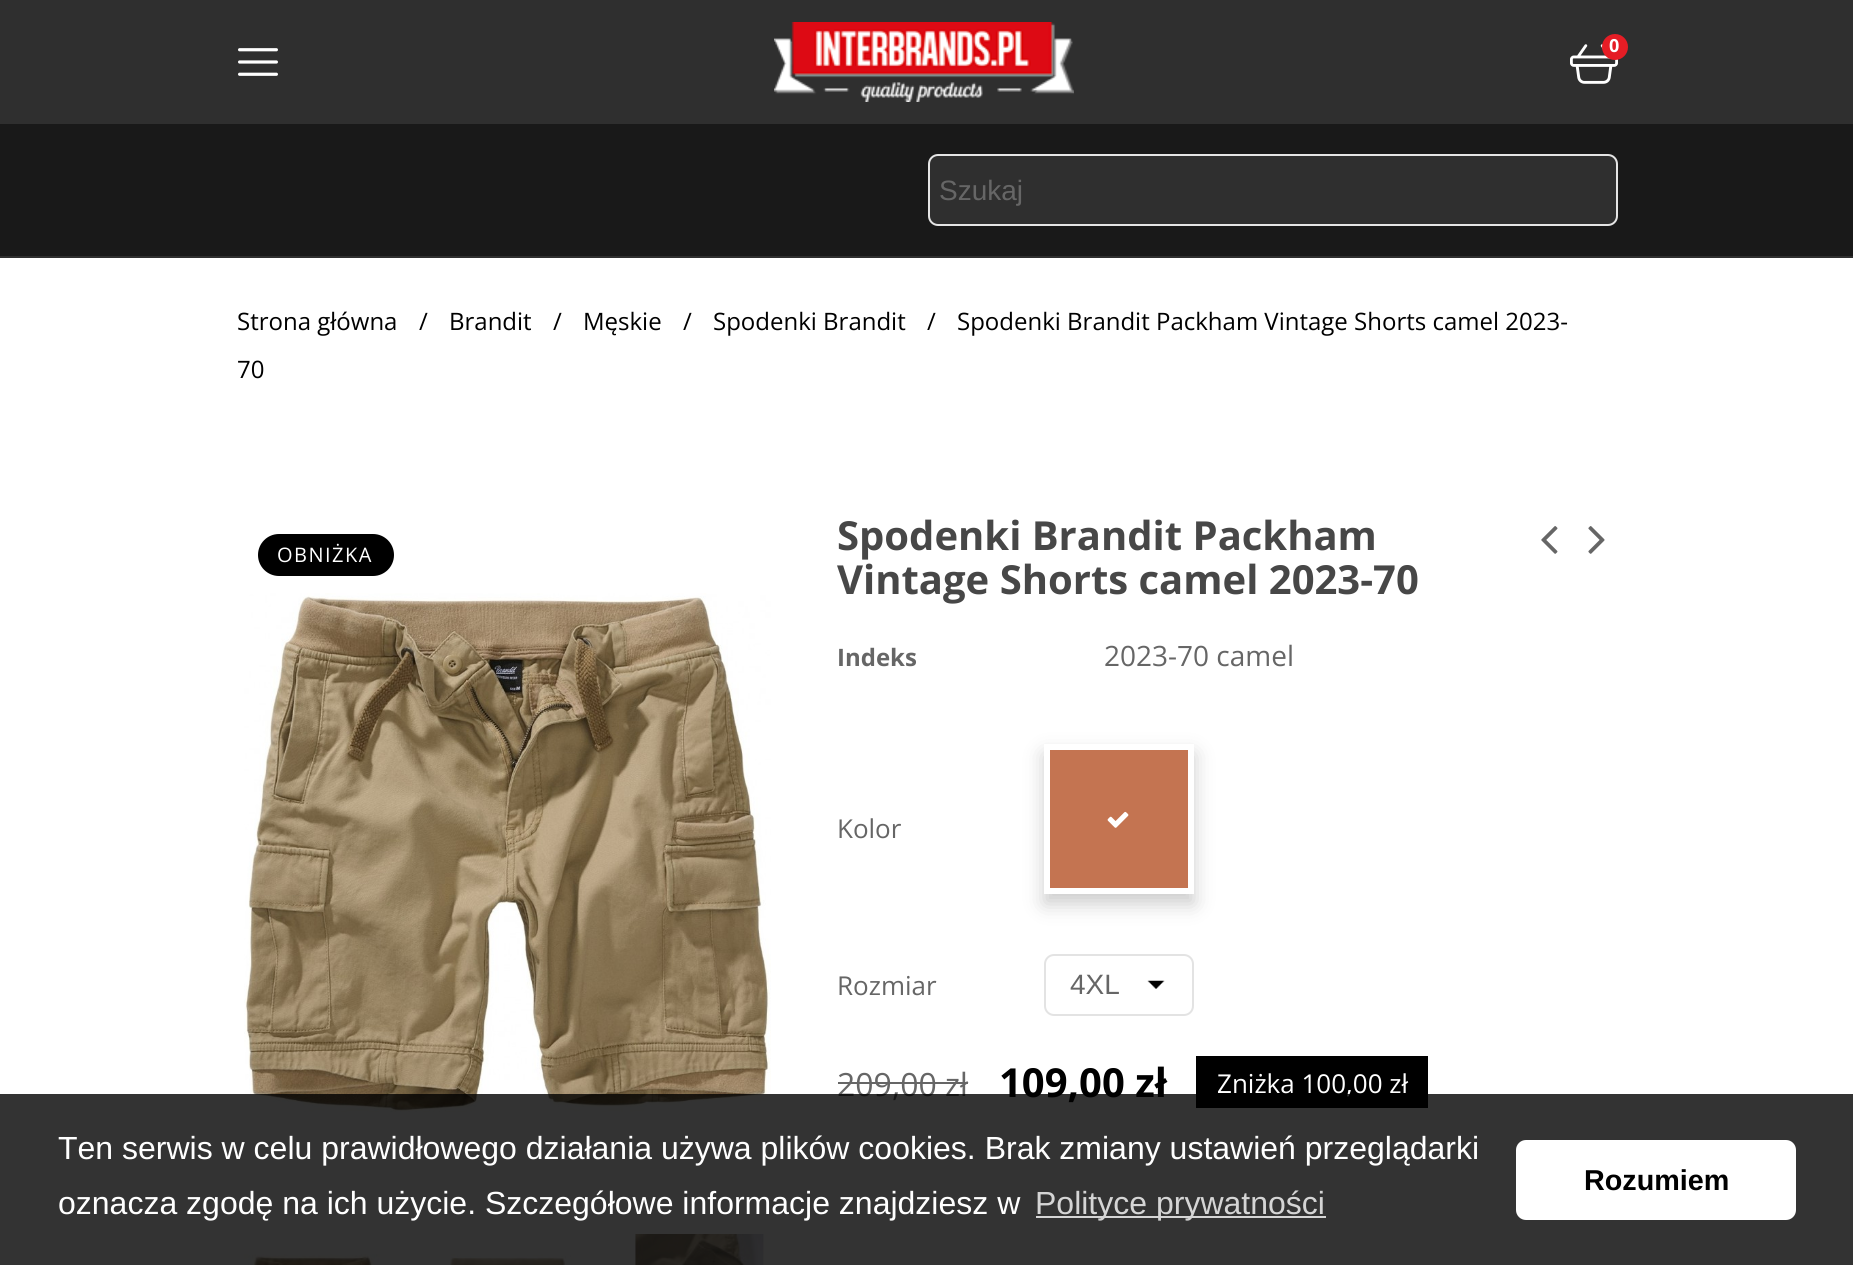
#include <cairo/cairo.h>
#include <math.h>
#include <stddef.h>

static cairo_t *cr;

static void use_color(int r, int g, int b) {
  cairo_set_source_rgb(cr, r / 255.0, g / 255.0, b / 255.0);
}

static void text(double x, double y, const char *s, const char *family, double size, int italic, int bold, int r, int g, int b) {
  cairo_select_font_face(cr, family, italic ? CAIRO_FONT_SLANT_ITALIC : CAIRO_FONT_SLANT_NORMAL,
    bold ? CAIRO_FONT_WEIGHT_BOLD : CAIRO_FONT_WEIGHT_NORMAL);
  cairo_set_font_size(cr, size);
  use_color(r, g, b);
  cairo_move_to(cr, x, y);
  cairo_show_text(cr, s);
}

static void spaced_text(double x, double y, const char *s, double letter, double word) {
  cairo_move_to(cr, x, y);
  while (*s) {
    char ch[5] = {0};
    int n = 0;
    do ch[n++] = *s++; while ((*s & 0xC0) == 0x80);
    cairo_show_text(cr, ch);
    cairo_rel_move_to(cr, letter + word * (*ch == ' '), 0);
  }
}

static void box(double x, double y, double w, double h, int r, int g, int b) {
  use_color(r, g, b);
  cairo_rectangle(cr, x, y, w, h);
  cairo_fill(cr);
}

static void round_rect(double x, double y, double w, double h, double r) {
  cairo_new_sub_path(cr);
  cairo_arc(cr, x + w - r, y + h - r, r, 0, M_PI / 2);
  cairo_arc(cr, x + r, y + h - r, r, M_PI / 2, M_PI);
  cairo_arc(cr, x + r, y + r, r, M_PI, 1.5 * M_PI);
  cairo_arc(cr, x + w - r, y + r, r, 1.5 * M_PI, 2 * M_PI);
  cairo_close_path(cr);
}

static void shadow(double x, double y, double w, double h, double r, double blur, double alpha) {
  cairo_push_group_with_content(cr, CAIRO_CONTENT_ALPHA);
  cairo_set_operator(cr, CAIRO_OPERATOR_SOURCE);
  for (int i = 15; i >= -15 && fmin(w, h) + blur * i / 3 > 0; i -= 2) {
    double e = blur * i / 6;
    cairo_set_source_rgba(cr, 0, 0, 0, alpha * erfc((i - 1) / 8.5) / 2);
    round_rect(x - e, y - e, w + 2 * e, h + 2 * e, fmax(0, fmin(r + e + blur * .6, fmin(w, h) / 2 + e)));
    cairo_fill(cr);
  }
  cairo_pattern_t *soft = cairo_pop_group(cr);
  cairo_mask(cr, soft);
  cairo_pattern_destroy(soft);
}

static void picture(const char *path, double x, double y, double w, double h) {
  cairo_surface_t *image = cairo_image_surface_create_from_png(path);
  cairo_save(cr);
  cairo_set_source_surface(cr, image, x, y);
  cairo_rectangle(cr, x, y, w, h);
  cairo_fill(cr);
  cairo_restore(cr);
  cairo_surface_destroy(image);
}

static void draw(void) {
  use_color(255, 255, 255);
  cairo_paint(cr);
  box(0, 0, 1853, 124, 47, 47, 47);
  picture("img_01.png", 774, 22, 300, 80);
  picture("img_02.png", 1570, 44, 48, 40);
  use_color(229, 29, 37);
  cairo_arc(cr, 1615, 47, 13, 0, 2 * M_PI);
  cairo_fill(cr);
  picture("img_03.png", 238, 48, 40, 28);
  box(0, 124, 1853, 132, 25, 25, 25);
  box(0, 256, 1853, 2, 47, 47, 47);
  round_rect(929, 155, 688, 70, 9);
  cairo_fill_preserve(cr);
  use_color(229, 229, 229);
  cairo_stroke(cr);
  use_color(0, 0, 0);
  round_rect(258, 534, 136, 42, 21);
  cairo_fill(cr);
  picture("img_04.png", 244, 593, 527, 519);
  picture("img_05.png", 244, 1254, 136, 11);
  picture("img_06.png", 450, 1254, 123, 11);
  picture("img_07.png", 635, 1234, 129, 31);
  picture("img_08.png", 1541, 526, 17, 28);
  picture("img_09.png", 1588, 526, 17, 28);
  use_color(0, 0, 0);
  shadow(1044, 754, 150, 150, 0, 10, 0.2);
  use_color(196, 116, 81);
  cairo_rectangle(cr, 1047, 747, 144, 144);
  cairo_fill_preserve(cr);
  use_color(255, 255, 255);
  cairo_set_line_width(cr, 6);
  cairo_stroke(cr);
  picture("img_10.png", 1107, 811, 22, 17);
  picture("img_11.png", 1147, 980, 18, 9);
  round_rect(1045, 955, 148, 60, 9);
  use_color(227, 227, 227);
  cairo_set_line_width(cr, 2);
  cairo_stroke(cr);
  box(838, 1082, 130, 2, 102, 102, 102);
  box(1196, 1056, 232, 52, 0, 0, 0);
  text(1609, 52, "0", "Open Sans", 18, 0, 1, 255, 255, 255);
  text(939, 200, "Szukaj", "Liberation Sans", 28, 0, 0, 102, 102, 102);
  text(237, 330, "Strona główna", "Open Sans", 24, 0, 0, 0, 0, 0);
  text(419, 330, "/", "Open Sans", 24, 0, 0, 0, 0, 0);
  text(449, 330, "Brandit", "Open Sans", 24, 0, 0, 0, 0, 0);
  text(553, 330, "/", "Open Sans", 24, 0, 0, 0, 0, 0);
  text(583, 330, "Męskie", "Open Sans", 24, 0, 0, 0, 0, 0);
  text(683, 330, "/", "Open Sans", 24, 0, 0, 0, 0, 0);
  text(713, 330, "Spodenki Brandit", "Open Sans", 24, 0, 0, 0, 0, 0);
  text(927, 330, "/", "Open Sans", 24, 0, 0, 0, 0, 0);
  text(957, 330, "Spodenki Brandit Packham Vintage Shorts camel 2023-", "Open Sans", 24, 0, 0, 0, 0, 0);
  text(237, 378, "70", "Open Sans", 24, 0, 0, 0, 0, 0);
  cairo_set_font_size(cr, 20);
  use_color(255, 255, 255);
  spaced_text(277, 562, "OBNIŻKA", 1.5, 0);
  text(837, 550, "Spodenki Brandit Packham", "Open Sans", 40, 0, 1, 71, 71, 71);
  text(837, 594, "Vintage Shorts camel 2023-70", "Open Sans", 40, 0, 1, 71, 71, 71);
  text(837, 666, "Indeks", "Open Sans", 24, 0, 1, 102, 102, 102);
  text(1104, 666, "2023-70 camel", "Open Sans", 28, 0, 0, 102, 102, 102);
  text(837, 838, "Kolor", "Open Sans", 26, 0, 0, 102, 102, 102);
  text(837, 995, "Rozmiar", "Open Sans", 26, 0, 0, 102, 102, 102);
  text(1070, 994, "4XL", "Liberation Sans", 28, 0, 0, 102, 102, 102);
  text(837, 1096, "209,00 zł", "Open Sans", 32, 0, 0, 102, 102, 102);
  text(999, 1097, "109,00 zł", "Open Sans", 40, 0, 1, 0, 0, 0);
  text(1217, 1093, "Zniżka 100,00 zł", "Open Sans", 26, 0, 0, 255, 255, 255);
  cairo_set_source_rgba(cr, 0, 0, 0, 0.8);
  cairo_rectangle(cr, 0, 1094, 1853, 171);
  cairo_fill(cr);
  text(58, 1159, "Ten serwis w celu prawidłowego działania używa plików cookies. Brak zmiany ustawień przeglądarki", "Liberation Sans", 32, 0, 0, 255, 255, 255);
  text(58, 1214, "oznacza zgodę na ich użycie. Szczegółowe informacje znajdziesz w", "Liberation Sans", 32, 0, 0, 255, 255, 255);
  cairo_set_source_rgba(cr, 1, 1, 1, 0.8);
  cairo_rectangle(cr, 1036, 1216, 290, 2);
  cairo_fill(cr);
  text(1035, 1214, "Polityce prywatności", "Liberation Sans", 32, 0, 0, 213, 213, 213);
  use_color(255, 255, 255);
  round_rect(1516, 1140, 280, 80, 10);
  cairo_fill(cr);
  text(1584, 1190, "Rozumiem", "Liberation Sans", 28.75, 0, 1, 0, 0, 0);
}

int main(void) {
  cairo_surface_t *surface = cairo_image_surface_create(CAIRO_FORMAT_RGB24, 1853, 1265);
  cr = cairo_create(surface);
  cairo_font_options_t *options = cairo_font_options_create();
  cairo_font_options_set_hint_metrics(options, CAIRO_HINT_METRICS_OFF);
  cairo_font_options_set_hint_style(options, CAIRO_HINT_STYLE_NONE);
  cairo_set_font_options(cr, options);
  cairo_set_miter_limit(cr, 4);
  draw();
  cairo_surface_write_to_png(surface, "out.png");
  cairo_font_options_destroy(options);
  cairo_destroy(cr);
  cairo_surface_destroy(surface);
  return 0;
}
